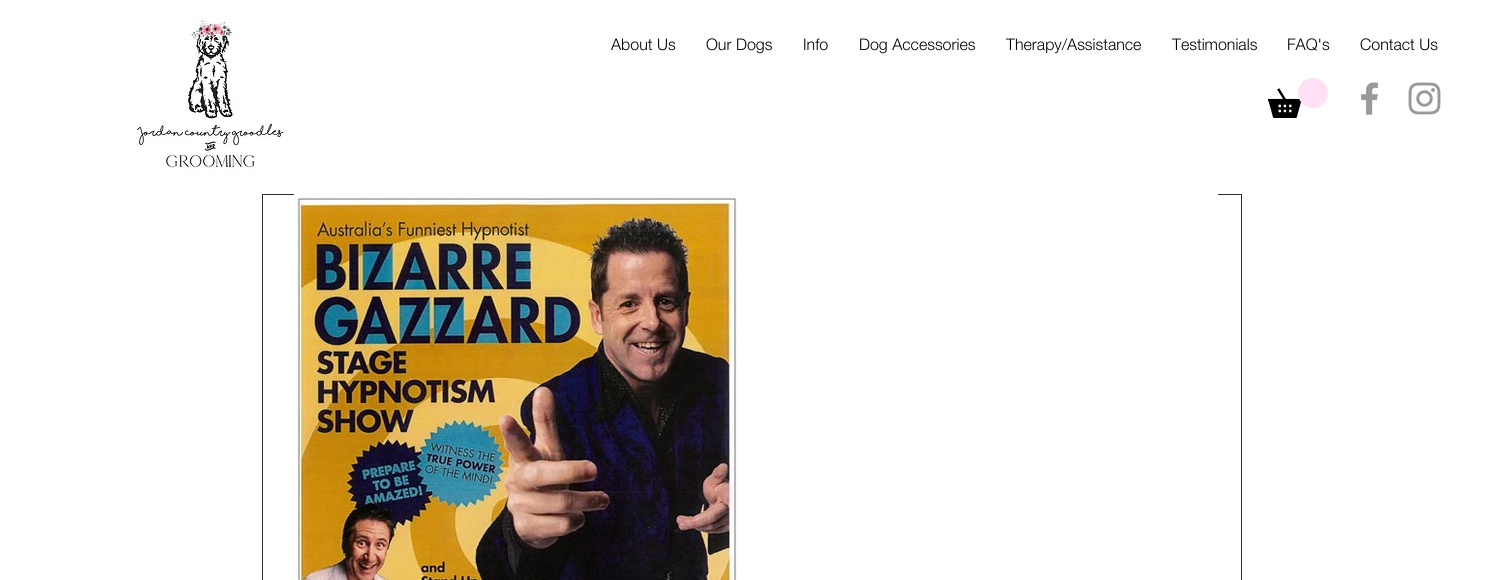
#include <cairo/cairo.h>
#include <math.h>
#include <stddef.h>

static cairo_t *cr;

static void use_color(int r, int g, int b) {
  cairo_set_source_rgb(cr, r / 255.0, g / 255.0, b / 255.0);
}

static void text(double x, double y, const char *s, const char *family, double size, int italic, int bold, int r, int g, int b) {
  cairo_select_font_face(cr, family, italic ? CAIRO_FONT_SLANT_ITALIC : CAIRO_FONT_SLANT_NORMAL,
    bold ? CAIRO_FONT_WEIGHT_BOLD : CAIRO_FONT_WEIGHT_NORMAL);
  cairo_set_font_size(cr, size);
  use_color(r, g, b);
  cairo_move_to(cr, x, y);
  cairo_show_text(cr, s);
}

static void box(double x, double y, double w, double h, int r, int g, int b) {
  use_color(r, g, b);
  cairo_rectangle(cr, x, y, w, h);
  cairo_fill(cr);
}

static void picture(const char *path, double x, double y, double w, double h) {
  cairo_surface_t *image = cairo_image_surface_create_from_png(path);
  cairo_save(cr);
  cairo_set_source_surface(cr, image, x, y);
  cairo_rectangle(cr, x, y, w, h);
  cairo_fill(cr);
  cairo_restore(cr);
  cairo_surface_destroy(image);
}

static void draw(void) {
  use_color(255, 255, 255);
  cairo_paint(cr);
  picture("img_01.png", 135, 19, 151, 151);
  picture("img_02.png", 1268, 78, 60, 40);
  picture("img_03.png", 1361, 82, 18, 33);
  picture("img_04.png", 1408, 82, 33, 33);
  cairo_rectangle(cr, 262.5, 194.5, 979, 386);
  use_color(47, 46, 46);
  cairo_set_line_width(cr, 1);
  cairo_stroke(cr);
  box(294, 194, 924, 1, 255, 255, 255);
  picture("img_05.png", 296, 196, 442, 384);
  text(611, 50, "About Us", "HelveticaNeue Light", 16, 0, 0, 0, 0, 0);
  text(706, 50, "Our Dogs", "HelveticaNeue Light", 16, 0, 0, 0, 0, 0);
  text(803, 50, "Info", "HelveticaNeue Light", 16, 0, 0, 0, 0, 0);
  text(859, 50, "Dog Accessories", "HelveticaNeue Light", 16, 0, 0, 0, 0, 0);
  text(1006, 50, "Therapy/Assistance", "HelveticaNeue Light", 16, 0, 0, 0, 0, 0);
  text(1172, 50, "Testimonials", "HelveticaNeue Light", 16, 0, 0, 0, 0, 0);
  text(1287, 50, "FAQ's", "HelveticaNeue Light", 16, 0, 0, 0, 0, 0);
  text(1360, 50, "Contact Us", "HelveticaNeue Light", 16, 0, 0, 0, 0, 0);
}

int main(void) {
  cairo_surface_t *surface = cairo_image_surface_create(CAIRO_FORMAT_RGB24, 1503, 580);
  cr = cairo_create(surface);
  cairo_font_options_t *options = cairo_font_options_create();
  cairo_font_options_set_hint_metrics(options, CAIRO_HINT_METRICS_OFF);
  cairo_font_options_set_hint_style(options, CAIRO_HINT_STYLE_NONE);
  cairo_set_font_options(cr, options);
  cairo_set_miter_limit(cr, 4);
  draw();
  cairo_surface_write_to_png(surface, "out.png");
  cairo_font_options_destroy(options);
  cairo_destroy(cr);
  cairo_surface_destroy(surface);
  return 0;
}
